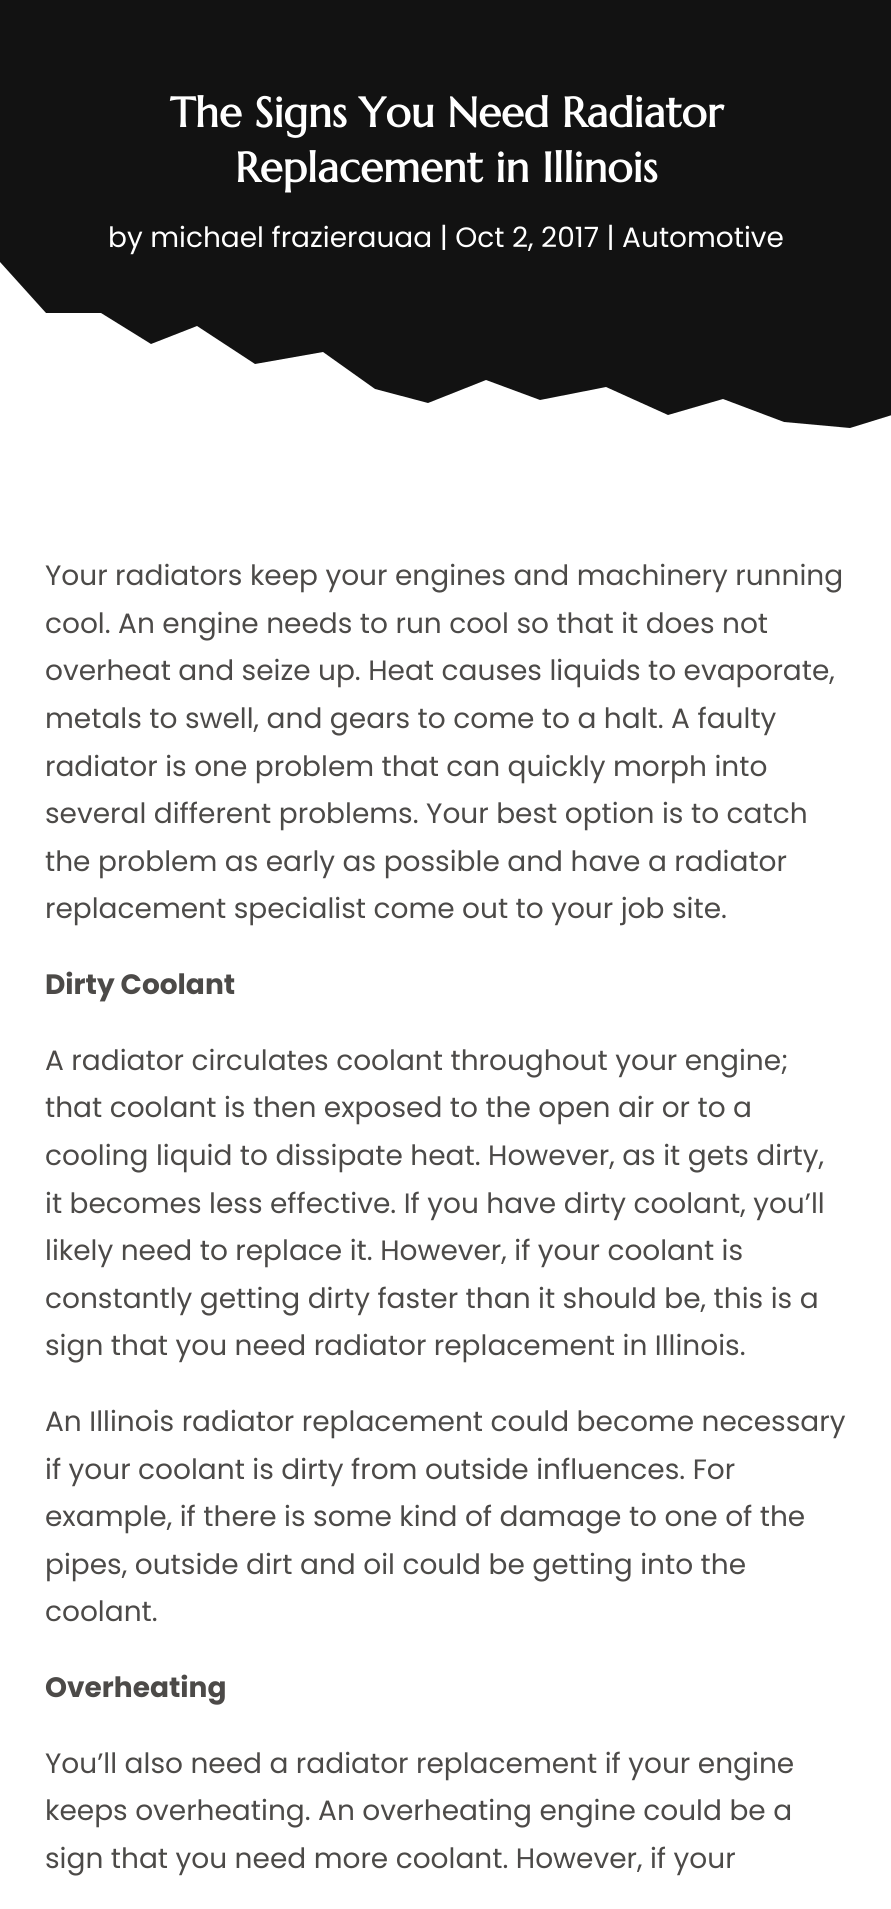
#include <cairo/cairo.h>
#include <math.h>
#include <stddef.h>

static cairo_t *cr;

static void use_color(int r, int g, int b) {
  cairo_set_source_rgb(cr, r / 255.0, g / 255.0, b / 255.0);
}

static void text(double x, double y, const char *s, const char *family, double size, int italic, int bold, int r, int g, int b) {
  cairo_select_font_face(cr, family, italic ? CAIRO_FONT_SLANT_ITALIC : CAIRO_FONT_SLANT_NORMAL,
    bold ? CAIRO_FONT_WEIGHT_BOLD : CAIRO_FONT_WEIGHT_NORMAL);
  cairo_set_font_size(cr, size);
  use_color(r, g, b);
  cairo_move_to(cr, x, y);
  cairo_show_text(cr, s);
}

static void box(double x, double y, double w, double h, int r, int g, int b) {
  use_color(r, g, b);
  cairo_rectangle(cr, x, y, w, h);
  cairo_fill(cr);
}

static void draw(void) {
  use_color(255, 255, 255);
  cairo_paint(cr);
  box(0, 0, 891, 428, 18, 18, 18);
  use_color(255, 255, 255);
  cairo_new_path(cr);
  cairo_move_to(cr, 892, 415);
  cairo_line_to(cr, 850, 428);
  cairo_line_to(cr, 784, 422);
  cairo_line_to(cr, 723, 399);
  cairo_line_to(cr, 668, 415);
  cairo_line_to(cr, 606, 387);
  cairo_line_to(cr, 540, 400);
  cairo_line_to(cr, 486, 380);
  cairo_line_to(cr, 428, 403);
  cairo_line_to(cr, 375, 389);
  cairo_line_to(cr, 323, 352);
  cairo_line_to(cr, 255, 364);
  cairo_line_to(cr, 197, 326);
  cairo_line_to(cr, 151, 344);
  cairo_line_to(cr, 101, 313);
  cairo_line_to(cr, 46, 313);
  cairo_line_to(cr, 0, 262);
  cairo_line_to(cr, 0, 438);
  cairo_line_to(cr, 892, 438);
  cairo_close_path(cr);
  cairo_fill(cr);
  text(170, 127, "The Signs You Need Radiator", "Marcellus", 42, 0, 1, 255, 255, 255);
  text(235, 182, "Replacement in Illinois", "Marcellus", 42, 0, 1, 255, 255, 255);
  text(108, 247, "by michael frazierauaa | Oct 2, 2017 | Automotive", "Poppins", 28, 0, 0, 255, 255, 255);
  text(45, 585, "Your radiators keep your engines and machinery running", "Poppins", 28, 0, 0, 76, 74, 72);
  text(45, 633, "cool. An engine needs to run cool so that it does not", "Poppins", 28, 0, 0, 76, 74, 72);
  text(45, 680, "overheat and seize up. Heat causes liquids to evaporate,", "Poppins", 28, 0, 0, 76, 74, 72);
  text(45, 728, "metals to swell, and gears to come to a halt. A faulty", "Poppins", 28, 0, 0, 76, 74, 72);
  text(45, 776, "radiator is one problem that can quickly morph into", "Poppins", 28, 0, 0, 76, 74, 72);
  text(45, 823, "several different problems. Your best option is to catch", "Poppins", 28, 0, 0, 76, 74, 72);
  text(45, 871, "the problem as early as possible and have a radiator", "Poppins", 28, 0, 0, 76, 74, 72);
  text(45, 918, "replacement specialist come out to your job site.", "Poppins", 28, 0, 0, 76, 74, 72);
  text(45, 994, "Dirty Coolant", "Poppins", 28, 0, 1, 76, 74, 72);
  text(45, 1070, "A radiator circulates coolant throughout your engine;", "Poppins", 28, 0, 0, 76, 74, 72);
  text(45, 1117, "that coolant is then exposed to the open air or to a", "Poppins", 28, 0, 0, 76, 74, 72);
  text(45, 1165, "cooling liquid to dissipate heat. However, as it gets dirty,", "Poppins", 28, 0, 0, 76, 74, 72);
  text(45, 1213, "it becomes less effective. If you have dirty coolant, you’ll", "Poppins", 28, 0, 0, 76, 74, 72);
  text(45, 1260, "likely need to replace it. However, if your coolant is", "Poppins", 28, 0, 0, 76, 74, 72);
  text(45, 1308, "constantly getting dirty faster than it should be, this is a", "Poppins", 28, 0, 0, 76, 74, 72);
  text(45, 1355, "sign that you need radiator replacement in Illinois.", "Poppins", 28, 0, 0, 76, 74, 72);
  text(45, 1431, "An Illinois radiator replacement could become necessary", "Poppins", 28, 0, 0, 76, 74, 72);
  text(45, 1479, "if your coolant is dirty from outside influences. For", "Poppins", 28, 0, 0, 76, 74, 72);
  text(45, 1526, "example, if there is some kind of damage to one of the", "Poppins", 28, 0, 0, 76, 74, 72);
  text(45, 1574, "pipes, outside dirt and oil could be getting into the", "Poppins", 28, 0, 0, 76, 74, 72);
  text(45, 1621, "coolant.", "Poppins", 28, 0, 0, 76, 74, 72);
  text(45, 1697, "Overheating", "Poppins", 28, 0, 1, 76, 74, 72);
  text(45, 1773, "You’ll also need a radiator replacement if your engine", "Poppins", 28, 0, 0, 76, 74, 72);
  text(45, 1820, "keeps overheating. An overheating engine could be a", "Poppins", 28, 0, 0, 76, 74, 72);
  text(45, 1868, "sign that you need more coolant. However, if your", "Poppins", 28, 0, 0, 76, 74, 72);
}

int main(void) {
  cairo_surface_t *surface = cairo_image_surface_create(CAIRO_FORMAT_RGB24, 891, 1909);
  cr = cairo_create(surface);
  cairo_font_options_t *options = cairo_font_options_create();
  cairo_font_options_set_hint_metrics(options, CAIRO_HINT_METRICS_OFF);
  cairo_font_options_set_hint_style(options, CAIRO_HINT_STYLE_NONE);
  cairo_set_font_options(cr, options);
  cairo_set_miter_limit(cr, 4);
  draw();
  cairo_surface_write_to_png(surface, "out.png");
  cairo_font_options_destroy(options);
  cairo_destroy(cr);
  cairo_surface_destroy(surface);
  return 0;
}
